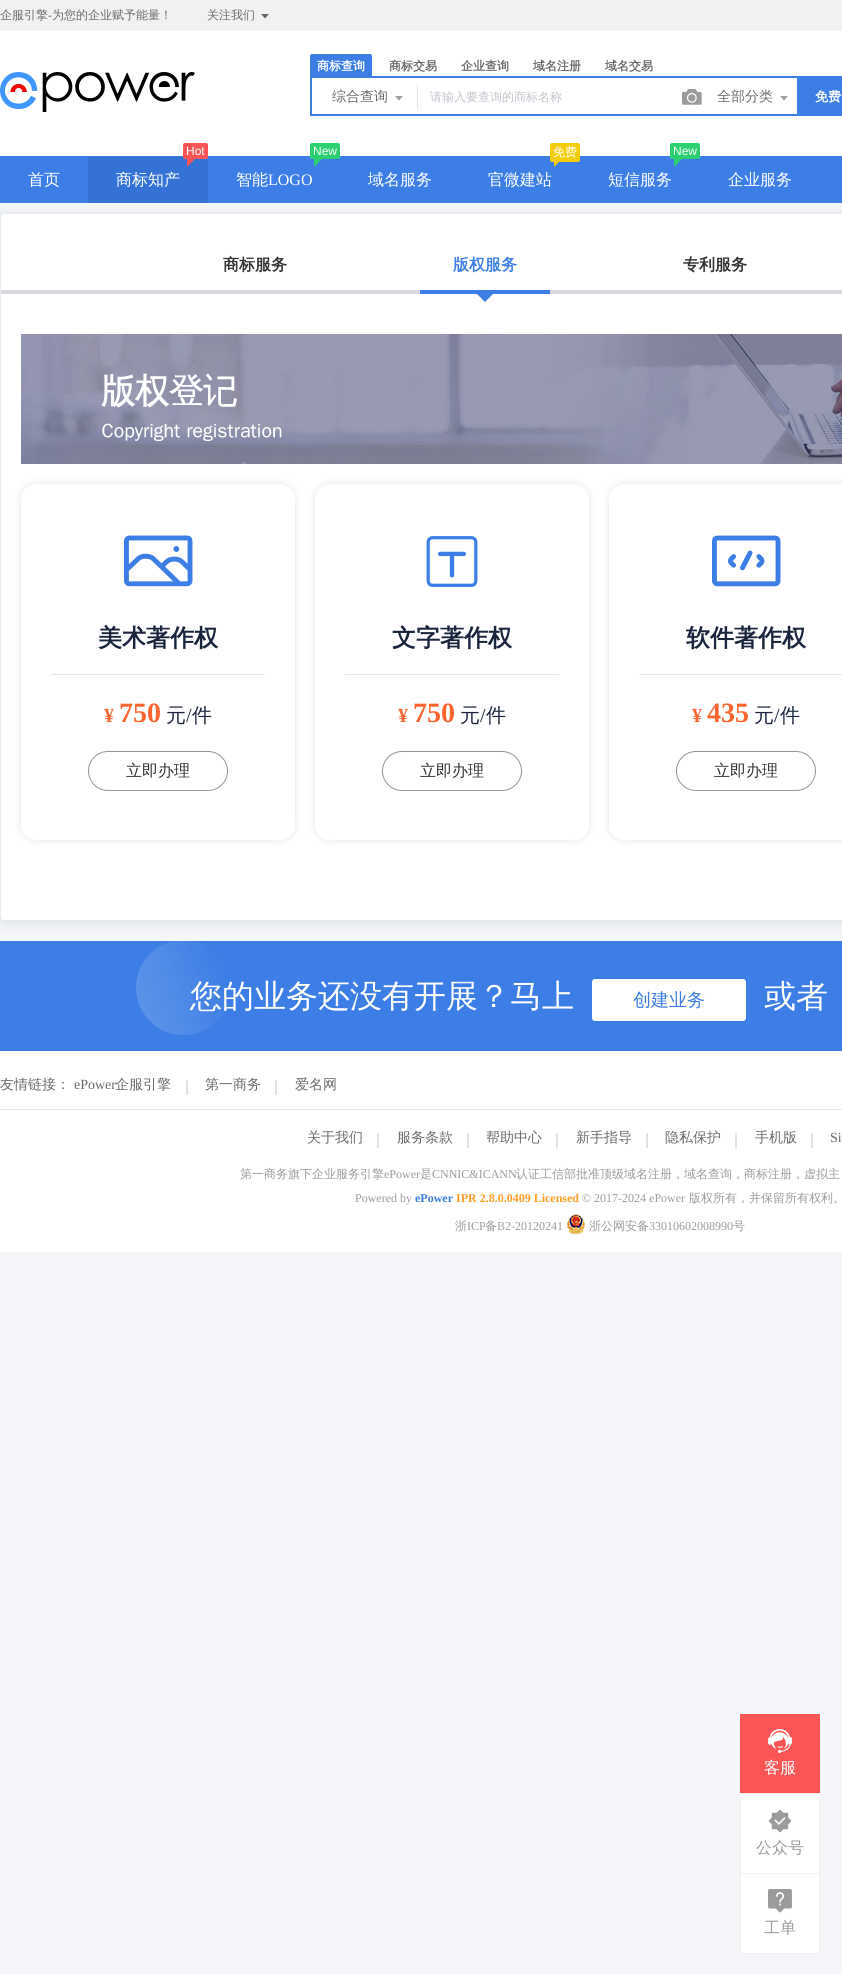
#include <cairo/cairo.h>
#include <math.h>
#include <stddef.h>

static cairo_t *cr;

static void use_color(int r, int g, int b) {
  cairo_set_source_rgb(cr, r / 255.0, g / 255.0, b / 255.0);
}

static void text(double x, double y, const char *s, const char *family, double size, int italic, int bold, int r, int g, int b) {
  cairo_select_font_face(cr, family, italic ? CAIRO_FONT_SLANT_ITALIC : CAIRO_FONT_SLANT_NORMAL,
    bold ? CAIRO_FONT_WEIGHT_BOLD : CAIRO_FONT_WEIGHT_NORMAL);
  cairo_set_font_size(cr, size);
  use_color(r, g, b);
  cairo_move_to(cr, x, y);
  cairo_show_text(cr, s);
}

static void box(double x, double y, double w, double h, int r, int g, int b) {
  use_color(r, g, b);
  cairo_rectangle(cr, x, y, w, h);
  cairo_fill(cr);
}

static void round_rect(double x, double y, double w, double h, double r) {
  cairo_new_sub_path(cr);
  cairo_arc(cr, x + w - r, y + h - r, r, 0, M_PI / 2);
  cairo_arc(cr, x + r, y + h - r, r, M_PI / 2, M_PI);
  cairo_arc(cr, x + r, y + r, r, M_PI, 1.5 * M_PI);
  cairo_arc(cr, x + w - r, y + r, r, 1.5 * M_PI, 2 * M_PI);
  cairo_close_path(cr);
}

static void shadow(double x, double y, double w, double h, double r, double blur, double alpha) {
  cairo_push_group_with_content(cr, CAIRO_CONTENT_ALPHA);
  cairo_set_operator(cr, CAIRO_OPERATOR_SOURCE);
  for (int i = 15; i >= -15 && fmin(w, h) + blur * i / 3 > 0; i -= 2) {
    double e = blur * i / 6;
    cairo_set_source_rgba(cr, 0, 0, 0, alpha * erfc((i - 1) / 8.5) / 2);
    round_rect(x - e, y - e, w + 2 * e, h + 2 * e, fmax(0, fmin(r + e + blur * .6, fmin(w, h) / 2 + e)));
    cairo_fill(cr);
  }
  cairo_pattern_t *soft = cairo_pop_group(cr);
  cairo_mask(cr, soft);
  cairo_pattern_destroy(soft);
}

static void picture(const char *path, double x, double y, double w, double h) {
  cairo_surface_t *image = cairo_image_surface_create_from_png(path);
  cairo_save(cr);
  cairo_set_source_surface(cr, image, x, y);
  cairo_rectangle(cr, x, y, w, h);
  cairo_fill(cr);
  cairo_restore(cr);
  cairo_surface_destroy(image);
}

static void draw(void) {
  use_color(245, 246, 250);
  cairo_paint(cr);
  box(0, 0, 842, 30, 240, 241, 243);
  use_color(102, 102, 102);
  cairo_new_path(cr);
  cairo_move_to(cr, 261, 14);
  cairo_line_to(cr, 269, 14);
  cairo_line_to(cr, 265, 18.5);
  cairo_close_path(cr);
  cairo_fill(cr);
  box(0, 31, 842, 125, 255, 255, 255);
  picture("img_01.png", 0, 72, 195, 40);
  use_color(60, 126, 229);
  cairo_new_path(cr);
  cairo_move_to(cr, 312, 54);
  cairo_line_to(cr, 370, 54);
  cairo_curve_to(cr, 371, 54, 372, 55, 372, 56);
  cairo_line_to(cr, 372, 76);
  cairo_line_to(cr, 310, 76);
  cairo_line_to(cr, 310, 56);
  cairo_curve_to(cr, 310, 55, 311, 54, 312, 54);
  cairo_close_path(cr);
  cairo_fill(cr);
  box(310, 76, 532, 2, 60, 126, 229);
  box(310, 114, 487, 2, 60, 126, 229);
  box(310, 76, 2, 40, 60, 126, 229);
  box(417, 85, 1, 24, 224, 227, 232);
  use_color(157, 160, 166);
  cairo_new_path(cr);
  cairo_move_to(cr, 395, 96);
  cairo_line_to(cr, 403, 96);
  cairo_line_to(cr, 399, 100.5);
  cairo_close_path(cr);
  cairo_fill(cr);
  picture("img_02.png", 682, 89, 20, 16);
  cairo_new_path(cr);
  cairo_move_to(cr, 780, 96);
  cairo_line_to(cr, 788, 96);
  cairo_line_to(cr, 784, 100.5);
  cairo_close_path(cr);
  cairo_fill(cr);
  box(797, 78, 45, 38, 60, 126, 229);
  box(0, 156, 842, 47, 60, 126, 229);
  box(0, 941, 842, 110, 60, 126, 229);
  picture("img_07.png", 136, 941, 90, 94);
  use_color(0, 0, 0);
  shadow(0, 215, 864, 708, 4, 6, 0.1);
  box(88, 157, 120, 46, 52, 115, 213);
  use_color(251, 85, 85);
  round_rect(183, 143, 25, 16, 2);
  cairo_fill(cr);
  cairo_new_path(cr);
  cairo_move_to(cr, 187, 159);
  cairo_line_to(cr, 195, 159);
  cairo_line_to(cr, 187, 167);
  cairo_close_path(cr);
  cairo_fill(cr);
  use_color(45, 208, 113);
  round_rect(310, 143, 30, 16, 2);
  cairo_fill(cr);
  cairo_new_path(cr);
  cairo_move_to(cr, 314, 159);
  cairo_line_to(cr, 322, 159);
  cairo_line_to(cr, 314, 167);
  cairo_close_path(cr);
  cairo_fill(cr);
  use_color(243, 204, 11);
  round_rect(550, 143, 30, 19, 2);
  cairo_fill(cr);
  cairo_new_path(cr);
  cairo_move_to(cr, 554, 159);
  cairo_line_to(cr, 562, 159);
  cairo_line_to(cr, 554, 167);
  cairo_close_path(cr);
  cairo_fill(cr);
  use_color(45, 208, 113);
  round_rect(670, 143, 30, 16, 2);
  cairo_fill(cr);
  cairo_new_path(cr);
  cairo_move_to(cr, 674, 159);
  cairo_line_to(cr, 682, 159);
  cairo_line_to(cr, 674, 167);
  cairo_close_path(cr);
  cairo_fill(cr);
  use_color(255, 255, 255);
  round_rect(0.5, 213.5, 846, 707, 3.5);
  cairo_fill_preserve(cr);
  use_color(230, 235, 245);
  cairo_set_line_width(cr, 1);
  cairo_stroke(cr);
  box(1, 290, 841, 4, 214, 216, 221);
  box(420, 290, 130, 4, 60, 126, 229);
  cairo_new_path(cr);
  cairo_move_to(cr, 477, 294);
  cairo_line_to(cr, 493, 294);
  cairo_line_to(cr, 485, 302);
  cairo_close_path(cr);
  cairo_fill(cr);
  picture("img_03.png", 21, 334, 821, 130);
  cairo_save(cr);
  cairo_set_fill_rule(cr, CAIRO_FILL_RULE_EVEN_ODD);
  cairo_new_path(cr);
  cairo_move_to(cr, 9, 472);
  cairo_line_to(cr, 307, 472);
  cairo_line_to(cr, 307, 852);
  cairo_line_to(cr, 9, 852);
  cairo_close_path(cr);
  cairo_move_to(cr, 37, 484);
  cairo_line_to(cr, 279, 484);
  cairo_curve_to(cr, 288, 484, 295, 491, 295, 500);
  cairo_line_to(cr, 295, 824);
  cairo_curve_to(cr, 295, 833, 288, 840, 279, 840);
  cairo_line_to(cr, 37, 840);
  cairo_curve_to(cr, 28, 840, 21, 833, 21, 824);
  cairo_line_to(cr, 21, 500);
  cairo_curve_to(cr, 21, 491, 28, 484, 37, 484);
  cairo_close_path(cr);
  cairo_clip(cr);
  use_color(221, 221, 221);
  shadow(19, 482, 278, 360, 18, 3, 0.5);
  cairo_restore(cr);
  picture("img_04.png", 124, 535, 69, 52);
  box(51, 674, 214, 1, 224, 227, 232);
  round_rect(88.5, 751.5, 139, 39, 19.5);
  use_color(149, 149, 149);
  cairo_stroke(cr);
  cairo_save(cr);
  cairo_set_fill_rule(cr, CAIRO_FILL_RULE_EVEN_ODD);
  cairo_new_path(cr);
  cairo_move_to(cr, 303, 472);
  cairo_line_to(cr, 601, 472);
  cairo_line_to(cr, 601, 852);
  cairo_line_to(cr, 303, 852);
  cairo_close_path(cr);
  cairo_move_to(cr, 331, 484);
  cairo_line_to(cr, 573, 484);
  cairo_curve_to(cr, 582, 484, 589, 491, 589, 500);
  cairo_line_to(cr, 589, 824);
  cairo_curve_to(cr, 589, 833, 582, 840, 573, 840);
  cairo_line_to(cr, 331, 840);
  cairo_curve_to(cr, 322, 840, 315, 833, 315, 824);
  cairo_line_to(cr, 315, 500);
  cairo_curve_to(cr, 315, 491, 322, 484, 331, 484);
  cairo_close_path(cr);
  cairo_clip(cr);
  use_color(221, 221, 221);
  shadow(313, 482, 278, 360, 18, 3, 0.5);
  cairo_restore(cr);
  picture("img_05.png", 426, 536, 52, 51);
  box(345, 674, 214, 1, 224, 227, 232);
  round_rect(382.5, 751.5, 139, 39, 19.5);
  use_color(149, 149, 149);
  cairo_stroke(cr);
  cairo_save(cr);
  cairo_set_fill_rule(cr, CAIRO_FILL_RULE_EVEN_ODD);
  cairo_new_path(cr);
  cairo_move_to(cr, 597, 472);
  cairo_line_to(cr, 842, 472);
  cairo_line_to(cr, 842, 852);
  cairo_line_to(cr, 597, 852);
  cairo_close_path(cr);
  cairo_move_to(cr, 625, 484);
  cairo_line_to(cr, 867, 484);
  cairo_curve_to(cr, 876, 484, 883, 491, 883, 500);
  cairo_line_to(cr, 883, 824);
  cairo_curve_to(cr, 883, 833, 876, 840, 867, 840);
  cairo_line_to(cr, 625, 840);
  cairo_curve_to(cr, 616, 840, 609, 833, 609, 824);
  cairo_line_to(cr, 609, 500);
  cairo_curve_to(cr, 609, 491, 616, 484, 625, 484);
  cairo_close_path(cr);
  cairo_clip(cr);
  use_color(221, 221, 221);
  shadow(607, 482, 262, 360, 18, 3, 0.5);
  cairo_restore(cr);
  picture("img_06.png", 712, 535, 69, 52);
  box(639, 674, 203, 1, 224, 227, 232);
  round_rect(676.5, 751.5, 139, 39, 19.5);
  use_color(149, 149, 149);
  cairo_stroke(cr);
  box(0, 1051, 842, 201, 255, 255, 255);
  round_rect(592.5, 979.5, 153, 41, 2.5);
  cairo_fill_preserve(cr);
  cairo_stroke(cr);
  box(0, 1109, 842, 1, 224, 227, 232);
  box(186, 1080, 2, 15, 224, 227, 232);
  box(275, 1080, 2, 15, 224, 227, 232);
  box(377, 1133, 2, 15, 224, 227, 232);
  box(467, 1133, 2, 15, 224, 227, 232);
  box(556, 1133, 2, 15, 224, 227, 232);
  box(646, 1133, 2, 15, 224, 227, 232);
  box(735, 1133, 2, 15, 224, 227, 232);
  box(811, 1133, 2, 15, 224, 227, 232);
  picture("img_08.png", 567, 1214, 18, 20);
  box(740, 1714, 80, 79, 251, 85, 85);
  box(740, 1793, 80, 1, 241, 241, 241);
  picture("img_09.png", 768, 1729, 24, 24);
  box(741, 1794, 78, 79, 255, 255, 255);
  box(819, 1794, 1, 160, 241, 241, 241);
  box(740, 1873, 80, 1, 241, 241, 241);
  box(740, 1794, 1, 80, 241, 241, 241);
  picture("img_10.png", 768, 1809, 24, 24);
  box(741, 1874, 78, 79, 255, 255, 255);
  box(740, 1953, 80, 1, 241, 241, 241);
  box(740, 1874, 1, 80, 241, 241, 241);
  picture("img_11.png", 768, 1889, 24, 24);
  text(0, 19, "企服引擎", "WenQuanYi Zen Hei Medium", 12, 0, 0, 107, 107, 107);
  text(48, 19, "-", "Liberation Serif", 12, 0, 0, 107, 107, 107);
  text(52, 19, "为您的企业赋予能量！", "WenQuanYi Zen Hei Medium", 12, 0, 0, 107, 107, 107);
  text(207, 19, "关注我们", "WenQuanYi Zen Hei Medium", 12, 0, 0, 107, 107, 107);
  text(317, 70, "商标查询", "WenQuanYi Zen Hei", 12, 0, 1, 255, 255, 255);
  text(389, 70, "商标交易", "WenQuanYi Zen Hei", 12, 0, 1, 107, 107, 107);
  text(461, 70, "企业查询", "WenQuanYi Zen Hei", 12, 0, 1, 107, 107, 107);
  text(533, 70, "域名注册", "WenQuanYi Zen Hei", 12, 0, 1, 107, 107, 107);
  text(605, 70, "域名交易", "WenQuanYi Zen Hei", 12, 0, 1, 107, 107, 107);
  text(332, 101, "综合查询", "WenQuanYi Zen Hei Medium", 14, 0, 0, 107, 107, 107);
  text(430, 101, "请输入要查询的商标名称", "WenQuanYi Zen Hei Medium", 12, 0, 0, 192, 196, 204);
  text(717, 101, "全部分类", "WenQuanYi Zen Hei Medium", 14, 0, 0, 107, 107, 107);
  text(815, 101, "免费", "WenQuanYi Zen Hei", 13, 0, 1, 255, 255, 255);
  text(28, 185, "首页", "WenQuanYi Zen Hei Medium", 16, 0, 0, 255, 255, 255);
  text(186, 155, "Hot", "Liberation Sans", 12, 0, 0, 255, 255, 255);
  text(116, 185, "商标知产", "WenQuanYi Zen Hei Medium", 16, 0, 0, 255, 255, 255);
  text(313, 155, "New", "Liberation Sans", 12, 0, 0, 255, 255, 255);
  text(236, 185, "智能", "WenQuanYi Zen Hei Medium", 16, 0, 0, 255, 255, 255);
  text(268, 185, "LOGO", "Liberation Serif", 16, 0, 0, 255, 255, 255);
  text(368, 185, "域名服务", "WenQuanYi Zen Hei Medium", 16, 0, 0, 255, 255, 255);
  text(553, 156, "免费", "WenQuanYi Zen Hei Medium", 12, 0, 0, 255, 255, 255);
  text(488, 185, "官微建站", "WenQuanYi Zen Hei Medium", 16, 0, 0, 255, 255, 255);
  text(673, 155, "New", "Liberation Sans", 12, 0, 0, 255, 255, 255);
  text(608, 185, "短信服务", "WenQuanYi Zen Hei Medium", 16, 0, 0, 255, 255, 255);
  text(728, 185, "企业服务", "WenQuanYi Zen Hei Medium", 16, 0, 0, 255, 255, 255);
  text(223, 270, "商标服务", "WenQuanYi Zen Hei", 16, 0, 1, 51, 51, 51);
  text(453, 270, "版权服务", "WenQuanYi Zen Hei", 16, 0, 1, 60, 126, 229);
  text(683, 270, "专利服务", "WenQuanYi Zen Hei", 16, 0, 1, 51, 51, 51);
  text(98, 646, "美术著作权", "WenQuanYi Zen Hei", 24, 0, 1, 26, 37, 61);
  text(104, 722, "¥", "Liberation Serif", 20, 0, 1, 252, 101, 48);
  text(119, 722, "750", "Liberation Serif", 28, 0, 1, 252, 101, 48);
  text(166, 722, "元", "WenQuanYi Zen Hei Medium", 20, 0, 0, 26, 37, 61);
  text(186, 722, "/", "Liberation Serif", 20, 0, 0, 26, 37, 61);
  text(192, 722, "件", "WenQuanYi Zen Hei Medium", 20, 0, 0, 26, 37, 61);
  text(126, 776, "立即办理", "WenQuanYi Zen Hei Medium", 16, 0, 0, 51, 51, 51);
  text(392, 646, "文字著作权", "WenQuanYi Zen Hei", 24, 0, 1, 26, 37, 61);
  text(398, 722, "¥", "Liberation Serif", 20, 0, 1, 252, 101, 48);
  text(413, 722, "750", "Liberation Serif", 28, 0, 1, 252, 101, 48);
  text(460, 722, "元", "WenQuanYi Zen Hei Medium", 20, 0, 0, 26, 37, 61);
  text(480, 722, "/", "Liberation Serif", 20, 0, 0, 26, 37, 61);
  text(486, 722, "件", "WenQuanYi Zen Hei Medium", 20, 0, 0, 26, 37, 61);
  text(420, 776, "立即办理", "WenQuanYi Zen Hei Medium", 16, 0, 0, 51, 51, 51);
  text(686, 646, "软件著作权", "WenQuanYi Zen Hei", 24, 0, 1, 26, 37, 61);
  text(692, 722, "¥", "Liberation Serif", 20, 0, 1, 252, 101, 48);
  text(707, 722, "435", "Liberation Serif", 28, 0, 1, 252, 101, 48);
  text(754, 722, "元", "WenQuanYi Zen Hei Medium", 20, 0, 0, 26, 37, 61);
  text(774, 722, "/", "Liberation Serif", 20, 0, 0, 26, 37, 61);
  text(780, 722, "件", "WenQuanYi Zen Hei Medium", 20, 0, 0, 26, 37, 61);
  text(714, 776, "立即办理", "WenQuanYi Zen Hei Medium", 16, 0, 0, 51, 51, 51);
  text(190, 1007, "您的业务还没有开展？马上", "WenQuanYi Zen Hei Medium", 32, 0, 0, 255, 255, 255);
  text(633, 1006, "创建业务", "WenQuanYi Zen Hei Medium", 18, 0, 0, 60, 126, 229);
  text(764, 1007, "或者", "WenQuanYi Zen Hei Medium", 32, 0, 0, 255, 255, 255);
  text(0, 1089, "友情链接：", "WenQuanYi Zen Hei Medium", 14, 0, 0, 107, 107, 107);
  text(74, 1089, "ePower", "Liberation Serif", 14, 0, 0, 107, 107, 107);
  text(115, 1089, "企服引擎", "WenQuanYi Zen Hei Medium", 14, 0, 0, 107, 107, 107);
  text(205, 1089, "第一商务", "WenQuanYi Zen Hei Medium", 14, 0, 0, 107, 107, 107);
  text(295, 1089, "爱名网", "WenQuanYi Zen Hei Medium", 14, 0, 0, 107, 107, 107);
  text(307, 1142, "关于我们", "WenQuanYi Zen Hei Medium", 14, 0, 0, 107, 107, 107);
  text(397, 1142, "服务条款", "WenQuanYi Zen Hei Medium", 14, 0, 0, 107, 107, 107);
  text(486, 1142, "帮助中心", "WenQuanYi Zen Hei Medium", 14, 0, 0, 107, 107, 107);
  text(576, 1142, "新手指导", "WenQuanYi Zen Hei Medium", 14, 0, 0, 107, 107, 107);
  text(665, 1142, "隐私保护", "WenQuanYi Zen Hei Medium", 14, 0, 0, 107, 107, 107);
  text(755, 1142, "手机版", "WenQuanYi Zen Hei Medium", 14, 0, 0, 107, 107, 107);
  text(830, 1142, "Si", "Liberation Serif", 14, 0, 0, 107, 107, 107);
  text(240, 1178, "第一商务旗下企业服务引擎", "WenQuanYi Zen Hei Medium", 12, 0, 0, 155, 155, 155);
  text(384, 1178, "ePower", "Liberation Serif", 12, 0, 0, 155, 155, 155);
  text(420, 1178, "是", "WenQuanYi Zen Hei Medium", 12, 0, 0, 155, 155, 155);
  text(432, 1178, "CNNIC&ICANN", "Liberation Serif", 12, 0, 0, 155, 155, 155);
  text(516, 1178, "认证工信部批准顶级域名注册，域名查询，商标注册，虚拟主", "WenQuanYi Zen Hei Medium", 12, 0, 0, 155, 155, 155);
  text(355, 1202, "Powered by", "Liberation Serif", 12, 0, 0, 155, 155, 155);
  text(415, 1202, "ePower", "Liberation Serif", 12, 0, 1, 60, 126, 229);
  text(456, 1202, "IPR 2.8.0.0409 Licensed", "Liberation Serif", 12, 0, 1, 255, 157, 37);
  text(582, 1202, "© 2017-2024 ePower", "Liberation Serif", 12, 0, 0, 155, 155, 155);
  text(689, 1202, "版权所有，并保留所有权利。", "WenQuanYi Zen Hei Medium", 12, 0, 0, 155, 155, 155);
  text(455, 1230, "浙", "WenQuanYi Zen Hei Medium", 12, 0, 0, 155, 155, 155);
  text(467, 1230, "ICP", "Liberation Serif", 12, 0, 0, 155, 155, 155);
  text(485, 1230, "备", "WenQuanYi Zen Hei Medium", 12, 0, 0, 155, 155, 155);
  text(497, 1230, "B2-20120241", "Liberation Serif", 12, 0, 0, 155, 155, 155);
  text(589, 1230, "浙公网安备", "WenQuanYi Zen Hei Medium", 12, 0, 0, 155, 155, 155);
  text(649, 1230, "33010602008990", "Liberation Serif", 12, 0, 0, 155, 155, 155);
  text(733, 1230, "号", "WenQuanYi Zen Hei Medium", 12, 0, 0, 155, 155, 155);
  text(764, 1773, "客服", "WenQuanYi Zen Hei Medium", 16, 0, 0, 255, 255, 255);
  text(756, 1853, "公众号", "WenQuanYi Zen Hei Medium", 16, 0, 0, 155, 155, 155);
  text(764, 1933, "工单", "WenQuanYi Zen Hei Medium", 16, 0, 0, 155, 155, 155);
}

int main(void) {
  cairo_surface_t *surface = cairo_image_surface_create(CAIRO_FORMAT_RGB24, 842, 1974);
  cr = cairo_create(surface);
  cairo_font_options_t *options = cairo_font_options_create();
  cairo_font_options_set_hint_metrics(options, CAIRO_HINT_METRICS_OFF);
  cairo_font_options_set_hint_style(options, CAIRO_HINT_STYLE_NONE);
  cairo_set_font_options(cr, options);
  cairo_set_miter_limit(cr, 4);
  draw();
  cairo_surface_write_to_png(surface, "out.png");
  cairo_font_options_destroy(options);
  cairo_destroy(cr);
  cairo_surface_destroy(surface);
  return 0;
}
